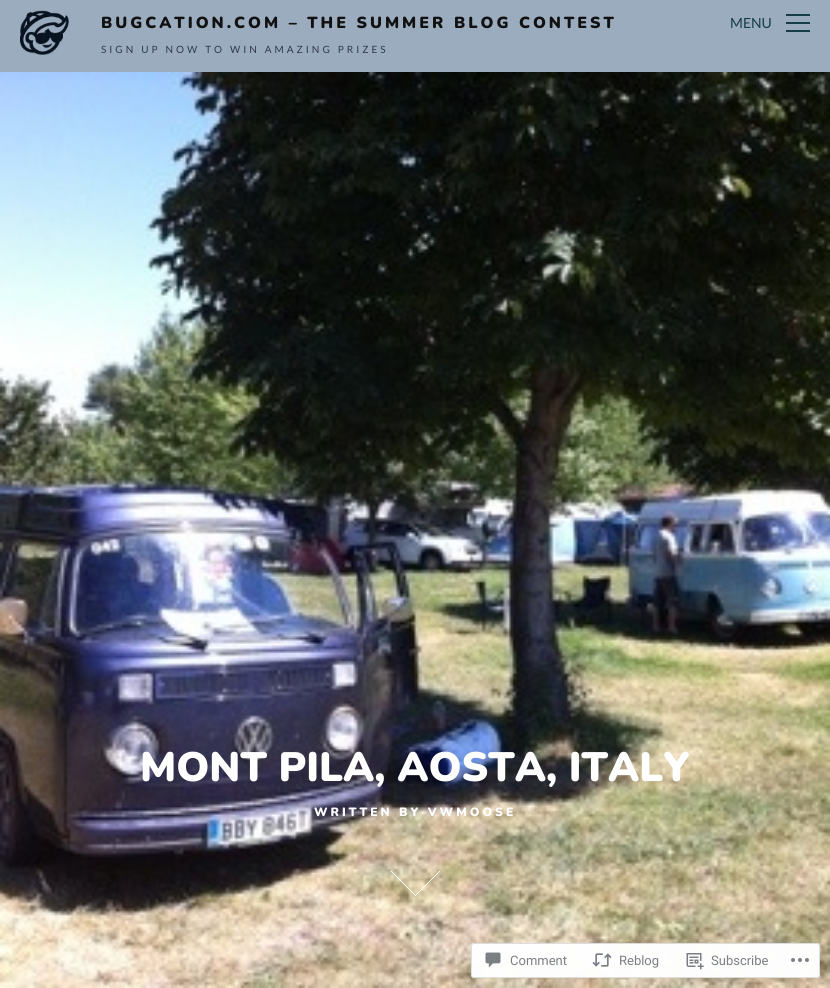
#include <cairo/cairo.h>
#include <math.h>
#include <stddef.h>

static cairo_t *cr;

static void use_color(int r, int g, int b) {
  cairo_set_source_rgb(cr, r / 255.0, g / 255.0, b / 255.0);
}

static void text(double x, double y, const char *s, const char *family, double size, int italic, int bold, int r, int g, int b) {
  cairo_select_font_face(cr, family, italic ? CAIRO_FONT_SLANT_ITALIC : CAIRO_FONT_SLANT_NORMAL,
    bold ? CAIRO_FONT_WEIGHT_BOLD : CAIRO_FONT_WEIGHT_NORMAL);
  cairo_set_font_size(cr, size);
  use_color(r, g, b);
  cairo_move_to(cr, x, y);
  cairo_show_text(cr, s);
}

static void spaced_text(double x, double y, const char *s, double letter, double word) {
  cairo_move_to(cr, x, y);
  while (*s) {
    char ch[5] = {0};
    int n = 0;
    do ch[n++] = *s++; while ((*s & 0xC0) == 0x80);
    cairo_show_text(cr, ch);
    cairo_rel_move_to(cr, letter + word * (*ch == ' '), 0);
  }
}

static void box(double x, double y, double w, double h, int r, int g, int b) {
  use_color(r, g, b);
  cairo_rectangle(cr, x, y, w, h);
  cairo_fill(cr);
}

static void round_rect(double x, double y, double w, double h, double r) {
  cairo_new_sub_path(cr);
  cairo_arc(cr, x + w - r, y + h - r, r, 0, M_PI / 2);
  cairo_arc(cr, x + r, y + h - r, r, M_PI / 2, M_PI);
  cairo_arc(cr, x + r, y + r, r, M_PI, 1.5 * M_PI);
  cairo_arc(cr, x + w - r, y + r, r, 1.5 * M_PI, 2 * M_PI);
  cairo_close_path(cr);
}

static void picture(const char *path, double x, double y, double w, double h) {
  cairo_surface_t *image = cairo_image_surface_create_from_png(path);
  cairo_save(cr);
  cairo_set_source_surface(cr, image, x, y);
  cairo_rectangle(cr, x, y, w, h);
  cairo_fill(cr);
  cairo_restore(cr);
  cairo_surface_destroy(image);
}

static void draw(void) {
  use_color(155, 172, 191);
  cairo_paint(cr);
  picture("img_01.png", 20, 10, 49, 45);
  box(786, 14, 24, 2, 22, 60, 74);
  box(786, 22, 24, 2, 22, 60, 74);
  box(786, 30, 24, 2, 22, 60, 74);
  picture("img_02.png", 0, 72, 830, 916);
  picture("img_03.png", 391, 871, 49, 25);
  cairo_set_source_rgba(cr, 1, 1, 1, 0.98);
  round_rect(471, 943, 349, 35, 3);
  cairo_fill(cr);
  round_rect(471.5, 943.5, 348, 34, 2.5);
  cairo_set_source_rgba(cr, 0.863, 0.863, 0.871, 0.98);
  cairo_set_line_width(cr, 1);
  cairo_stroke(cr);
  picture("img_04.png", 485, 952, 16, 16);
  picture("img_05.png", 592, 953, 20, 14);
  picture("img_06.png", 686, 953, 18, 17);
  picture("img_07.png", 791, 958, 18, 4);
  cairo_select_font_face(cr, "Nunito ExtraLight", CAIRO_FONT_SLANT_NORMAL, CAIRO_FONT_WEIGHT_NORMAL);
  cairo_set_font_size(cr, 16);
  use_color(17, 17, 17);
  spaced_text(101, 28, "BUGCATION.COM – THE SUMMER BLOG CONTEST", 3, 0);
  cairo_select_font_face(cr, "Lato", CAIRO_FONT_SLANT_NORMAL, CAIRO_FONT_WEIGHT_NORMAL);
  cairo_set_font_size(cr, 10);
  use_color(47, 56, 75);
  spaced_text(101, 53, "SIGN UP NOW TO WIN AMAZING PRIZES", 3, 0);
  text(730, 28, "MENU", "Lato", 14, 0, 0, 22, 60, 74);
  text(140, 781, "MONT PILA, AOSTA, ITALY", "Nunito ExtraLight", 41, 0, 0, 255, 255, 255);
  cairo_set_font_size(cr, 12);
  spaced_text(314, 816, "WRITTEN BY VWMOOSE", 3, 0);
  text(510, 965, "Comment", "Roboto", 13, 0, 0, 123, 127, 132);
  text(619, 965, "Reblog", "Roboto", 13, 0, 0, 123, 127, 132);
  text(711, 965, "Subscribe", "Roboto", 13, 0, 0, 123, 127, 132);
}

int main(void) {
  cairo_surface_t *surface = cairo_image_surface_create(CAIRO_FORMAT_RGB24, 830, 988);
  cr = cairo_create(surface);
  cairo_font_options_t *options = cairo_font_options_create();
  cairo_font_options_set_hint_metrics(options, CAIRO_HINT_METRICS_OFF);
  cairo_font_options_set_hint_style(options, CAIRO_HINT_STYLE_NONE);
  cairo_set_font_options(cr, options);
  cairo_set_miter_limit(cr, 4);
  draw();
  cairo_surface_write_to_png(surface, "out.png");
  cairo_font_options_destroy(options);
  cairo_destroy(cr);
  cairo_surface_destroy(surface);
  return 0;
}
